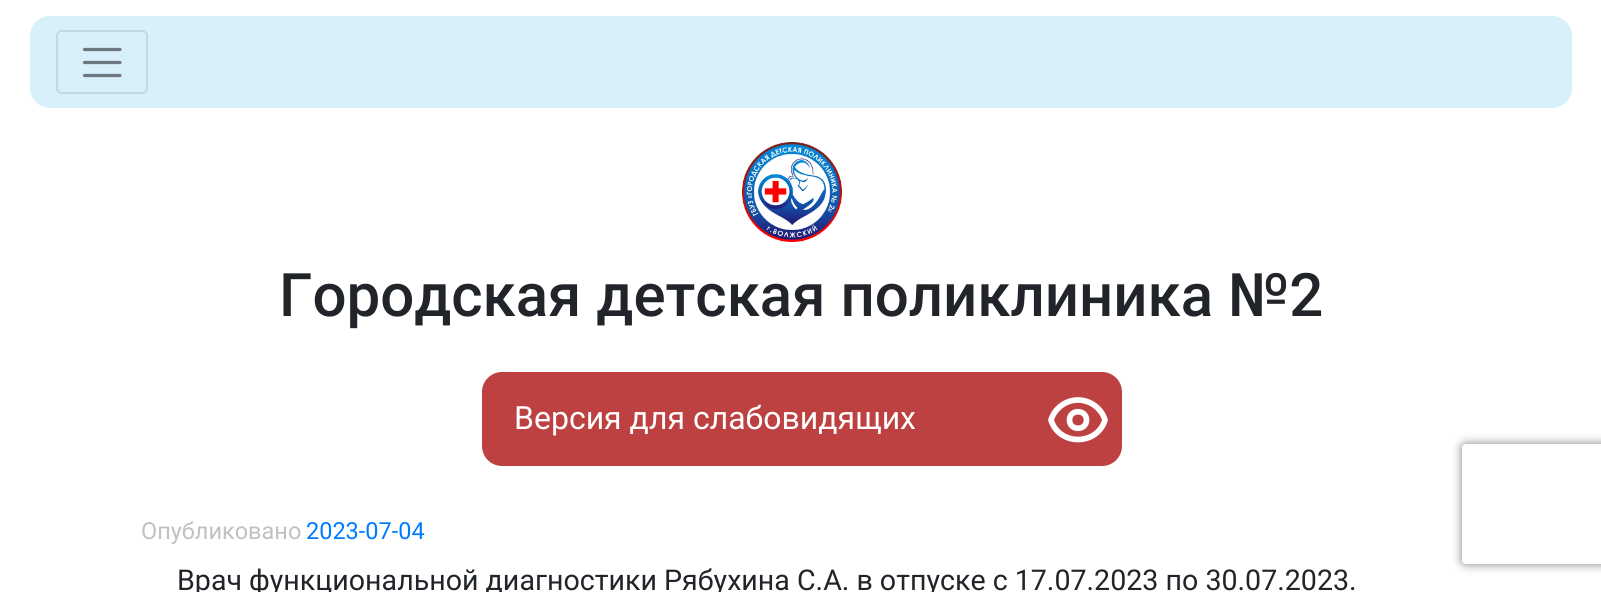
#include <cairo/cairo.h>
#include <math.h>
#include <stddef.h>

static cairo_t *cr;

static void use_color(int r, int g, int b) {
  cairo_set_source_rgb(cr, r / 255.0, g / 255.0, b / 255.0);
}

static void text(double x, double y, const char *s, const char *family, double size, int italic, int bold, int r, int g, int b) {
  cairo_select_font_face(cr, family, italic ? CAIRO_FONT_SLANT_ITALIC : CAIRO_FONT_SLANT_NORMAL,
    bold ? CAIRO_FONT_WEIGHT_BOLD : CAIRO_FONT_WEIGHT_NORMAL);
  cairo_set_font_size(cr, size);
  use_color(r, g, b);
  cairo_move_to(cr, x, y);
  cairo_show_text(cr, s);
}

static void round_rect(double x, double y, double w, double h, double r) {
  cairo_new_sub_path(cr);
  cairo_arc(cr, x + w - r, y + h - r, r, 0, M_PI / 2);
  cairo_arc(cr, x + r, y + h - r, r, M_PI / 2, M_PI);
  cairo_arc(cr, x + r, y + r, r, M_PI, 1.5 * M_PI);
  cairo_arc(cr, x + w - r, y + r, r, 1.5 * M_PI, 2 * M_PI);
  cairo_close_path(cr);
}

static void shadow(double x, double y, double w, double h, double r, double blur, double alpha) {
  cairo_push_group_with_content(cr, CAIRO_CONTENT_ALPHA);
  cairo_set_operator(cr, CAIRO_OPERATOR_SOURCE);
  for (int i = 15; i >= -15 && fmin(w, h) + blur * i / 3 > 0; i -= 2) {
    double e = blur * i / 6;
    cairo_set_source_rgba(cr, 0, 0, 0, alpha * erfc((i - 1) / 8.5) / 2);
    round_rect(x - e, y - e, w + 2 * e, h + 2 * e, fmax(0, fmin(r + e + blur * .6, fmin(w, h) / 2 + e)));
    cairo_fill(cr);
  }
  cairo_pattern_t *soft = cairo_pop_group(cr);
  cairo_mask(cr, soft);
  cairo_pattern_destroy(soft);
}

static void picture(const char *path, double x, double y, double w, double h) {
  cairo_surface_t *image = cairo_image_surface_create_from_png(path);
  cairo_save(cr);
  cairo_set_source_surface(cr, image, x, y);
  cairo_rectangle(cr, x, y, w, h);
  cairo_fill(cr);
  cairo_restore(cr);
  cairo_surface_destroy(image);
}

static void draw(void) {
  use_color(255, 255, 255);
  cairo_paint(cr);
  use_color(215, 240, 250);
  round_rect(30, 16, 1542, 92, 20);
  cairo_fill(cr);
  round_rect(57, 31, 90, 62, 5);
  use_color(194, 216, 225);
  cairo_stroke(cr);
  cairo_new_path(cr);
  cairo_move_to(cr, 84.5, 49.5);
  cairo_line_to(cr, 120, 49.5);
  cairo_move_to(cr, 84.5, 62.5);
  cairo_line_to(cr, 120, 62.5);
  cairo_move_to(cr, 84.5, 75.5);
  cairo_line_to(cr, 120, 75.5);
  use_color(108, 120, 125);
  cairo_set_line_width(cr, 3.2);
  cairo_set_line_cap(cr, CAIRO_LINE_CAP_ROUND);
  cairo_stroke(cr);
  picture("img_01.png", 742, 142, 100, 100);
  use_color(189, 65, 65);
  round_rect(482, 372, 640, 94, 20);
  cairo_fill(cr);
  cairo_new_path(cr);
  cairo_move_to(cr, 1086.5, 420);
  cairo_curve_to(cr, 1086.5, 431, 1069.5, 431, 1069.5, 420);
  cairo_curve_to(cr, 1069.5, 409, 1086.5, 409, 1086.5, 420);
  cairo_close_path(cr);
  cairo_move_to(cr, 1078, 400);
  cairo_curve_to(cr, 1065.5, 400, 1054.5, 408.5, 1051, 420);
  cairo_curve_to(cr, 1059, 446, 1097, 446, 1105, 420);
  cairo_curve_to(cr, 1101.5, 408.5, 1090.5, 400, 1078, 400);
  cairo_close_path(cr);
  use_color(255, 255, 255);
  cairo_set_line_width(cr, 5.7);
  cairo_set_line_join(cr, CAIRO_LINE_JOIN_ROUND);
  cairo_stroke(cr);
  cairo_save(cr);
  cairo_set_fill_rule(cr, CAIRO_FILL_RULE_EVEN_ODD);
  cairo_new_path(cr);
  cairo_move_to(cr, 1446, 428);
  cairo_line_to(cr, 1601, 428);
  cairo_line_to(cr, 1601, 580);
  cairo_line_to(cr, 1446, 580);
  cairo_close_path(cr);
  cairo_move_to(cr, 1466, 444);
  cairo_line_to(cr, 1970, 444);
  cairo_curve_to(cr, 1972, 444, 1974, 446, 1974, 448);
  cairo_line_to(cr, 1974, 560);
  cairo_curve_to(cr, 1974, 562, 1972, 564, 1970, 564);
  cairo_line_to(cr, 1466, 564);
  cairo_curve_to(cr, 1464, 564, 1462, 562, 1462, 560);
  cairo_line_to(cr, 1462, 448);
  cairo_curve_to(cr, 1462, 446, 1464, 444, 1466, 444);
  cairo_close_path(cr);
  cairo_clip(cr);
  use_color(128, 128, 128);
  shadow(1462, 444, 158, 120, 4, 5, 1);
  cairo_restore(cr);
  text(279, 316, "Городская детская поликлиника №2", "Roboto Medium", 60, 0, 0, 33, 37, 41);
  text(514, 429, "Версия для слабовидящих", "Roboto", 32, 0, 0, 255, 255, 255);
  text(141, 539, "Опубликовано", "Roboto", 23.5, 0, 0, 193, 193, 193);
  text(306, 539, "2023-07-04", "Roboto", 23.5, 0, 0, 0, 123, 255);
  text(177, 590, "Врач функциональной диагностики Рябухина С.А. в отпуске с 17.07.2023 по 30.07.2023.", "Roboto", 28.6, 0, 0, 33, 37, 41);
}

int main(void) {
  cairo_surface_t *surface = cairo_image_surface_create(CAIRO_FORMAT_RGB24, 1601, 592);
  cr = cairo_create(surface);
  cairo_font_options_t *options = cairo_font_options_create();
  cairo_font_options_set_hint_metrics(options, CAIRO_HINT_METRICS_OFF);
  cairo_font_options_set_hint_style(options, CAIRO_HINT_STYLE_NONE);
  cairo_set_font_options(cr, options);
  cairo_set_miter_limit(cr, 4);
  draw();
  cairo_surface_write_to_png(surface, "out.png");
  cairo_font_options_destroy(options);
  cairo_destroy(cr);
  cairo_surface_destroy(surface);
  return 0;
}
